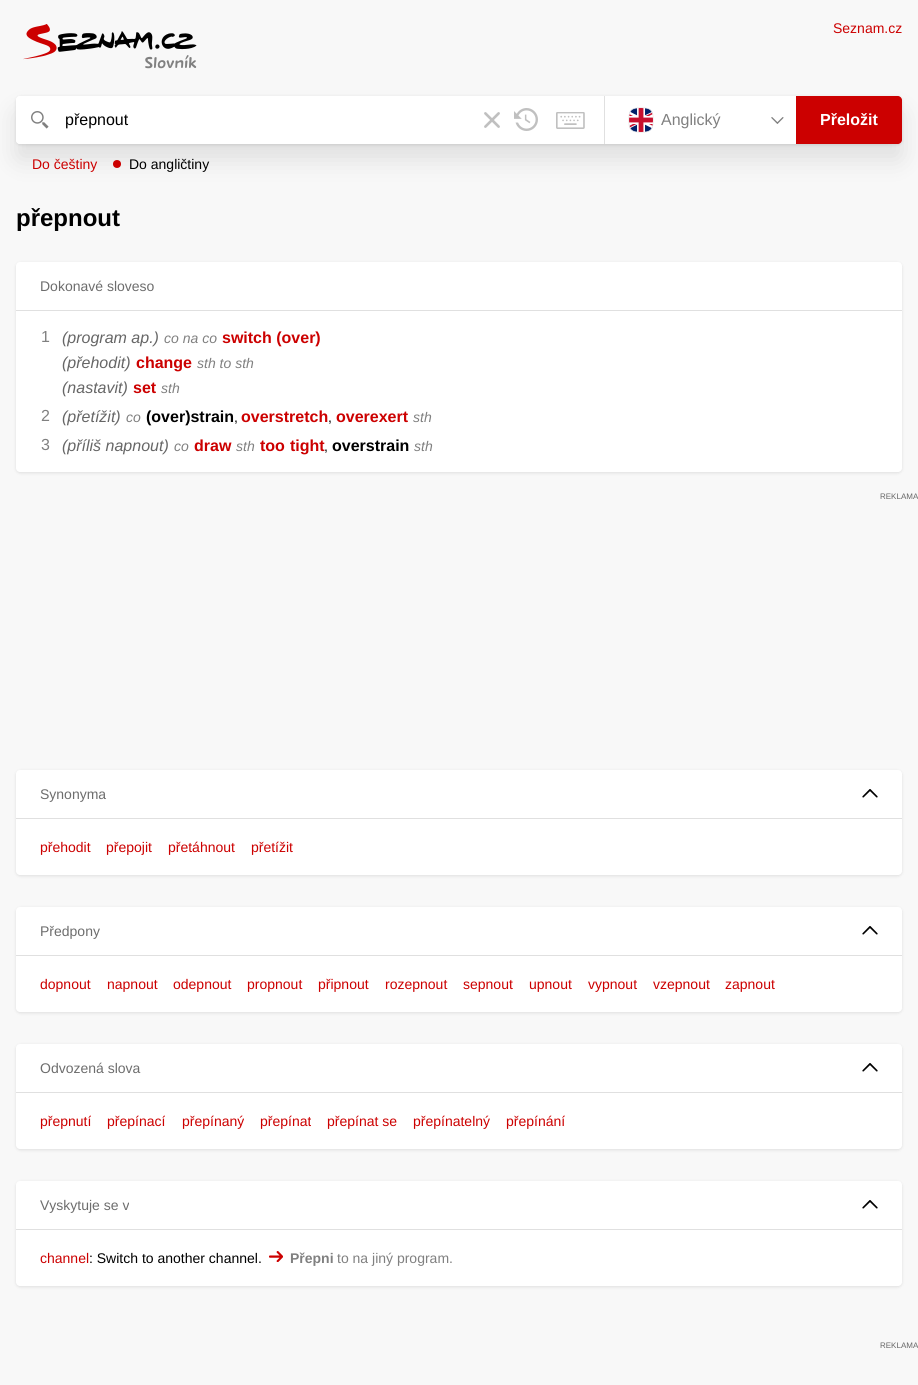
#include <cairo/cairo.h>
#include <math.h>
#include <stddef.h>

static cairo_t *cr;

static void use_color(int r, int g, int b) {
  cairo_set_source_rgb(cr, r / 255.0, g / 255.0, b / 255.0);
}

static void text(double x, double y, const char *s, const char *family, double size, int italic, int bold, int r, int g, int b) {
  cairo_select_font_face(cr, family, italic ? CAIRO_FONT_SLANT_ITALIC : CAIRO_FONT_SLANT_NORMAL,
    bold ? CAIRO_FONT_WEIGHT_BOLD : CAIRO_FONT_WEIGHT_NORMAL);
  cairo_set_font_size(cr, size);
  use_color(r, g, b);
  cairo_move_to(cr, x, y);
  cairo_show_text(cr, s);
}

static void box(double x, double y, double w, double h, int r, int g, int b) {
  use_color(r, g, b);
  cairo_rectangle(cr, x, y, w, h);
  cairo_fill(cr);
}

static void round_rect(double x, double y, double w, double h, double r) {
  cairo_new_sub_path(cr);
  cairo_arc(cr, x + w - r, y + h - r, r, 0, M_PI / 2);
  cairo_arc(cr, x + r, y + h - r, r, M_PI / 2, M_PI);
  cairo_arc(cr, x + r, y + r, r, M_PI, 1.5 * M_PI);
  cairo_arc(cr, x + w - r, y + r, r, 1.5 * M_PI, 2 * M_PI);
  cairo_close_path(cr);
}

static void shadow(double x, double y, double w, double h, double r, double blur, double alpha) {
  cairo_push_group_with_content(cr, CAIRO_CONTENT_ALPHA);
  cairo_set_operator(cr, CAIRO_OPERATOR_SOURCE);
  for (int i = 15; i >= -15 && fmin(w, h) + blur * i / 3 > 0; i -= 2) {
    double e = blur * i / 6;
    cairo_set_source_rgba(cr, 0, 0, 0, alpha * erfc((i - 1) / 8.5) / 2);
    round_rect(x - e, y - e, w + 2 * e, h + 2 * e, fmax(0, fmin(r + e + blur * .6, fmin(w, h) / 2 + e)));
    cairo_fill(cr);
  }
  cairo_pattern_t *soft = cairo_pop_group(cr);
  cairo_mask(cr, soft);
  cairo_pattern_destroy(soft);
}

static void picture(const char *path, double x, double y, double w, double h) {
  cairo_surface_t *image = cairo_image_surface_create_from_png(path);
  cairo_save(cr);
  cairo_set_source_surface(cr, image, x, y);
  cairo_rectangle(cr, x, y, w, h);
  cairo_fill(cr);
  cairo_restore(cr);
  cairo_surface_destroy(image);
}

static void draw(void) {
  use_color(248, 248, 248);
  cairo_paint(cr);
  picture("img_01.png", 23, 24, 174, 45);
  use_color(0, 0, 0);
  shadow(16, 97, 886, 48, 4, 1.5, 0.1);
  shadow(16, 112, 886, 48, 4, 12, 0.1);
  use_color(255, 255, 255);
  round_rect(16, 96, 886, 48, 4);
  cairo_fill(cr);
  round_rect(16, 96, 48, 48, 4);
  cairo_fill(cr);
  picture("img_02.png", 31, 111, 18, 18);
  picture("img_03.png", 484, 112, 16, 16);
  picture("img_04.png", 514, 108, 24, 23);
  picture("img_05.png", 556, 112, 29, 17);
  box(604, 96, 1, 48, 224, 224, 224);
  picture("img_06.png", 628, 107, 26, 26);
  picture("img_07.png", 771, 117, 13, 7);
  use_color(204, 0, 0);
  cairo_new_path(cr);
  cairo_move_to(cr, 796, 96);
  cairo_line_to(cr, 898, 96);
  cairo_curve_to(cr, 900, 96, 902, 98, 902, 100);
  cairo_line_to(cr, 902, 140);
  cairo_curve_to(cr, 902, 142, 900, 144, 898, 144);
  cairo_line_to(cr, 796, 144);
  cairo_close_path(cr);
  cairo_fill(cr);
  cairo_arc(cr, 117, 164, 4, 0, 2 * M_PI);
  cairo_fill(cr);
  use_color(0, 0, 0);
  shadow(16, 263, 886, 210, 4, 1.5, 0.1);
  use_color(255, 255, 255);
  round_rect(16, 262, 886, 210, 4);
  cairo_fill(cr);
  box(16, 310, 886, 1, 224, 224, 224);
  use_color(0, 0, 0);
  shadow(16, 771, 886, 105, 4, 1.5, 0.1);
  use_color(255, 255, 255);
  round_rect(16, 770, 886, 105, 4);
  cairo_fill(cr);
  box(16, 818, 886, 1, 224, 224, 224);
  picture("img_08.png", 862, 789, 16, 9);
  use_color(0, 0, 0);
  shadow(16, 908, 886, 105, 4, 1.5, 0.1);
  use_color(255, 255, 255);
  round_rect(16, 907, 886, 105, 4);
  cairo_fill(cr);
  box(16, 955, 886, 1, 224, 224, 224);
  picture("img_08.png", 862, 926, 16, 9);
  use_color(0, 0, 0);
  shadow(16, 1045, 886, 105, 4, 1.5, 0.1);
  use_color(255, 255, 255);
  round_rect(16, 1044, 886, 105, 4);
  cairo_fill(cr);
  box(16, 1092, 886, 1, 224, 224, 224);
  picture("img_08.png", 862, 1063, 16, 9);
  use_color(0, 0, 0);
  shadow(16, 1182, 886, 105, 4, 1.5, 0.1);
  use_color(255, 255, 255);
  round_rect(16, 1181, 886, 105, 4);
  cairo_fill(cr);
  box(16, 1229, 886, 1, 224, 224, 224);
  picture("img_08.png", 862, 1200, 16, 9);
  picture("img_09.png", 269, 1251, 14, 11);
  text(833, 33, "Seznam.cz", "Liberation Sans", 14, 0, 0, 204, 0, 0);
  text(65, 125, "přepnout", "Liberation Sans", 16, 0, 0, 0, 0, 0);
  text(661, 125, "Anglický", "Liberation Sans", 16, 0, 0, 128, 128, 128);
  text(820, 125, "Přeložit", "Liberation Sans", 16, 0, 1, 255, 255, 255);
  text(32, 169, "Do češtiny", "Liberation Sans", 14, 0, 0, 204, 0, 0);
  text(129, 169, "Do angličtiny", "Liberation Sans", 14, 0, 0, 0, 0, 0);
  text(16, 226, "přepnout", "Liberation Sans", 24, 0, 1, 0, 0, 0);
  text(40, 291, "Dokonavé sloveso", "Liberation Sans", 14, 0, 0, 109, 109, 109);
  text(41, 342, "1", "Liberation Sans", 16, 0, 0, 128, 128, 128);
  text(62, 343, "(program ap.)", "Liberation Sans", 16, 1, 0, 102, 102, 102);
  text(164, 343, "co na co", "Liberation Sans", 14, 1, 0, 128, 128, 128);
  text(222, 343, "switch (over)", "Liberation Sans", 16, 0, 1, 204, 0, 0);
  text(62, 368, "(přehodit)", "Liberation Sans", 16, 1, 0, 102, 102, 102);
  text(136, 368, "change", "Liberation Sans", 16, 0, 1, 204, 0, 0);
  text(197, 368, "sth to sth", "Liberation Sans", 14, 1, 0, 128, 128, 128);
  text(62, 393, "(nastavit)", "Liberation Sans", 16, 1, 0, 102, 102, 102);
  text(133, 393, "set", "Liberation Sans", 16, 0, 1, 204, 0, 0);
  text(161, 393, "sth", "Liberation Sans", 14, 1, 0, 128, 128, 128);
  text(41, 421, "2", "Liberation Sans", 16, 0, 0, 128, 128, 128);
  text(62, 422, "(přetížit)", "Liberation Sans", 16, 1, 0, 102, 102, 102);
  text(126, 422, "co", "Liberation Sans", 14, 1, 0, 128, 128, 128);
  text(146, 422, "(over)strain", "Liberation Sans", 16, 0, 1, 0, 0, 0);
  text(234, 422, ",", "Liberation Sans", 14, 0, 0, 0, 0, 0);
  text(241, 422, "overstretch", "Liberation Sans", 16, 0, 1, 204, 0, 0);
  text(328, 422, ",", "Liberation Sans", 14, 0, 0, 0, 0, 0);
  text(336, 422, "overexert", "Liberation Sans", 16, 0, 1, 204, 0, 0);
  text(413, 422, "sth", "Liberation Sans", 14, 1, 0, 128, 128, 128);
  text(41, 450, "3", "Liberation Sans", 16, 0, 0, 128, 128, 128);
  text(62, 451, "(příliš napnout)", "Liberation Sans", 16, 1, 0, 102, 102, 102);
  text(174, 451, "co", "Liberation Sans", 14, 1, 0, 128, 128, 128);
  text(194, 451, "draw", "Liberation Sans", 16, 0, 1, 204, 0, 0);
  text(236, 451, "sth", "Liberation Sans", 14, 1, 0, 128, 128, 128);
  text(260, 451, "too", "Liberation Sans", 16, 0, 1, 204, 0, 0);
  text(290, 451, "tight", "Liberation Sans", 16, 0, 1, 204, 0, 0);
  text(324, 451, ",", "Liberation Sans", 14, 0, 0, 0, 0, 0);
  text(332, 451, "overstrain", "Liberation Sans", 16, 0, 1, 0, 0, 0);
  text(414, 451, "sth", "Liberation Sans", 14, 1, 0, 128, 128, 128);
  text(880, 499, "REKLAMA", "Liberation Sans", 8, 0, 0, 102, 102, 102);
  text(40, 799, "Synonyma", "Liberation Sans", 14, 0, 0, 109, 109, 109);
  text(40, 852, "přehodit", "Liberation Sans", 14, 0, 0, 204, 0, 0);
  text(106, 852, "přepojit", "Liberation Sans", 14, 0, 0, 204, 0, 0);
  text(168, 852, "přetáhnout", "Liberation Sans", 14, 0, 0, 204, 0, 0);
  text(251, 852, "přetížit", "Liberation Sans", 14, 0, 0, 204, 0, 0);
  text(40, 936, "Předpony", "Liberation Sans", 14, 0, 0, 109, 109, 109);
  text(40, 989, "dopnout", "Liberation Sans", 14, 0, 0, 204, 0, 0);
  text(107, 989, "napnout", "Liberation Sans", 14, 0, 0, 204, 0, 0);
  text(173, 989, "odepnout", "Liberation Sans", 14, 0, 0, 204, 0, 0);
  text(247, 989, "propnout", "Liberation Sans", 14, 0, 0, 204, 0, 0);
  text(318, 989, "připnout", "Liberation Sans", 14, 0, 0, 204, 0, 0);
  text(385, 989, "rozepnout", "Liberation Sans", 14, 0, 0, 204, 0, 0);
  text(463, 989, "sepnout", "Liberation Sans", 14, 0, 0, 204, 0, 0);
  text(529, 989, "upnout", "Liberation Sans", 14, 0, 0, 204, 0, 0);
  text(588, 989, "vypnout", "Liberation Sans", 14, 0, 0, 204, 0, 0);
  text(653, 989, "vzepnout", "Liberation Sans", 14, 0, 0, 204, 0, 0);
  text(725, 989, "zapnout", "Liberation Sans", 14, 0, 0, 204, 0, 0);
  text(40, 1073, "Odvozená slova", "Liberation Sans", 14, 0, 0, 109, 109, 109);
  text(40, 1126, "přepnutí", "Liberation Sans", 14, 0, 0, 204, 0, 0);
  text(107, 1126, "přepínací", "Liberation Sans", 14, 0, 0, 204, 0, 0);
  text(182, 1126, "přepínaný", "Liberation Sans", 14, 0, 0, 204, 0, 0);
  text(260, 1126, "přepínat", "Liberation Sans", 14, 0, 0, 204, 0, 0);
  text(327, 1126, "přepínat se", "Liberation Sans", 14, 0, 0, 204, 0, 0);
  text(413, 1126, "přepínatelný", "Liberation Sans", 14, 0, 0, 204, 0, 0);
  text(506, 1126, "přepínání", "Liberation Sans", 14, 0, 0, 204, 0, 0);
  text(40, 1210, "Vyskytuje se v", "Liberation Sans", 14, 0, 0, 109, 109, 109);
  text(40, 1263, "channel", "Liberation Sans", 14, 0, 0, 204, 0, 0);
  text(89, 1263, ": Switch to another channel.", "Liberation Sans", 14, 0, 0, 0, 0, 0);
  text(290, 1263, "Přepni", "Liberation Sans", 14, 0, 1, 128, 128, 128);
  text(337, 1263, "to na jiný program.", "Liberation Sans", 14, 0, 0, 128, 128, 128);
  text(880, 1348, "REKLAMA", "Liberation Sans", 8, 0, 0, 102, 102, 102);
}

int main(void) {
  cairo_surface_t *surface = cairo_image_surface_create(CAIRO_FORMAT_RGB24, 918, 1385);
  cr = cairo_create(surface);
  cairo_font_options_t *options = cairo_font_options_create();
  cairo_font_options_set_hint_metrics(options, CAIRO_HINT_METRICS_OFF);
  cairo_font_options_set_hint_style(options, CAIRO_HINT_STYLE_NONE);
  cairo_set_font_options(cr, options);
  cairo_set_miter_limit(cr, 4);
  draw();
  cairo_surface_write_to_png(surface, "out.png");
  cairo_font_options_destroy(options);
  cairo_destroy(cr);
  cairo_surface_destroy(surface);
  return 0;
}
